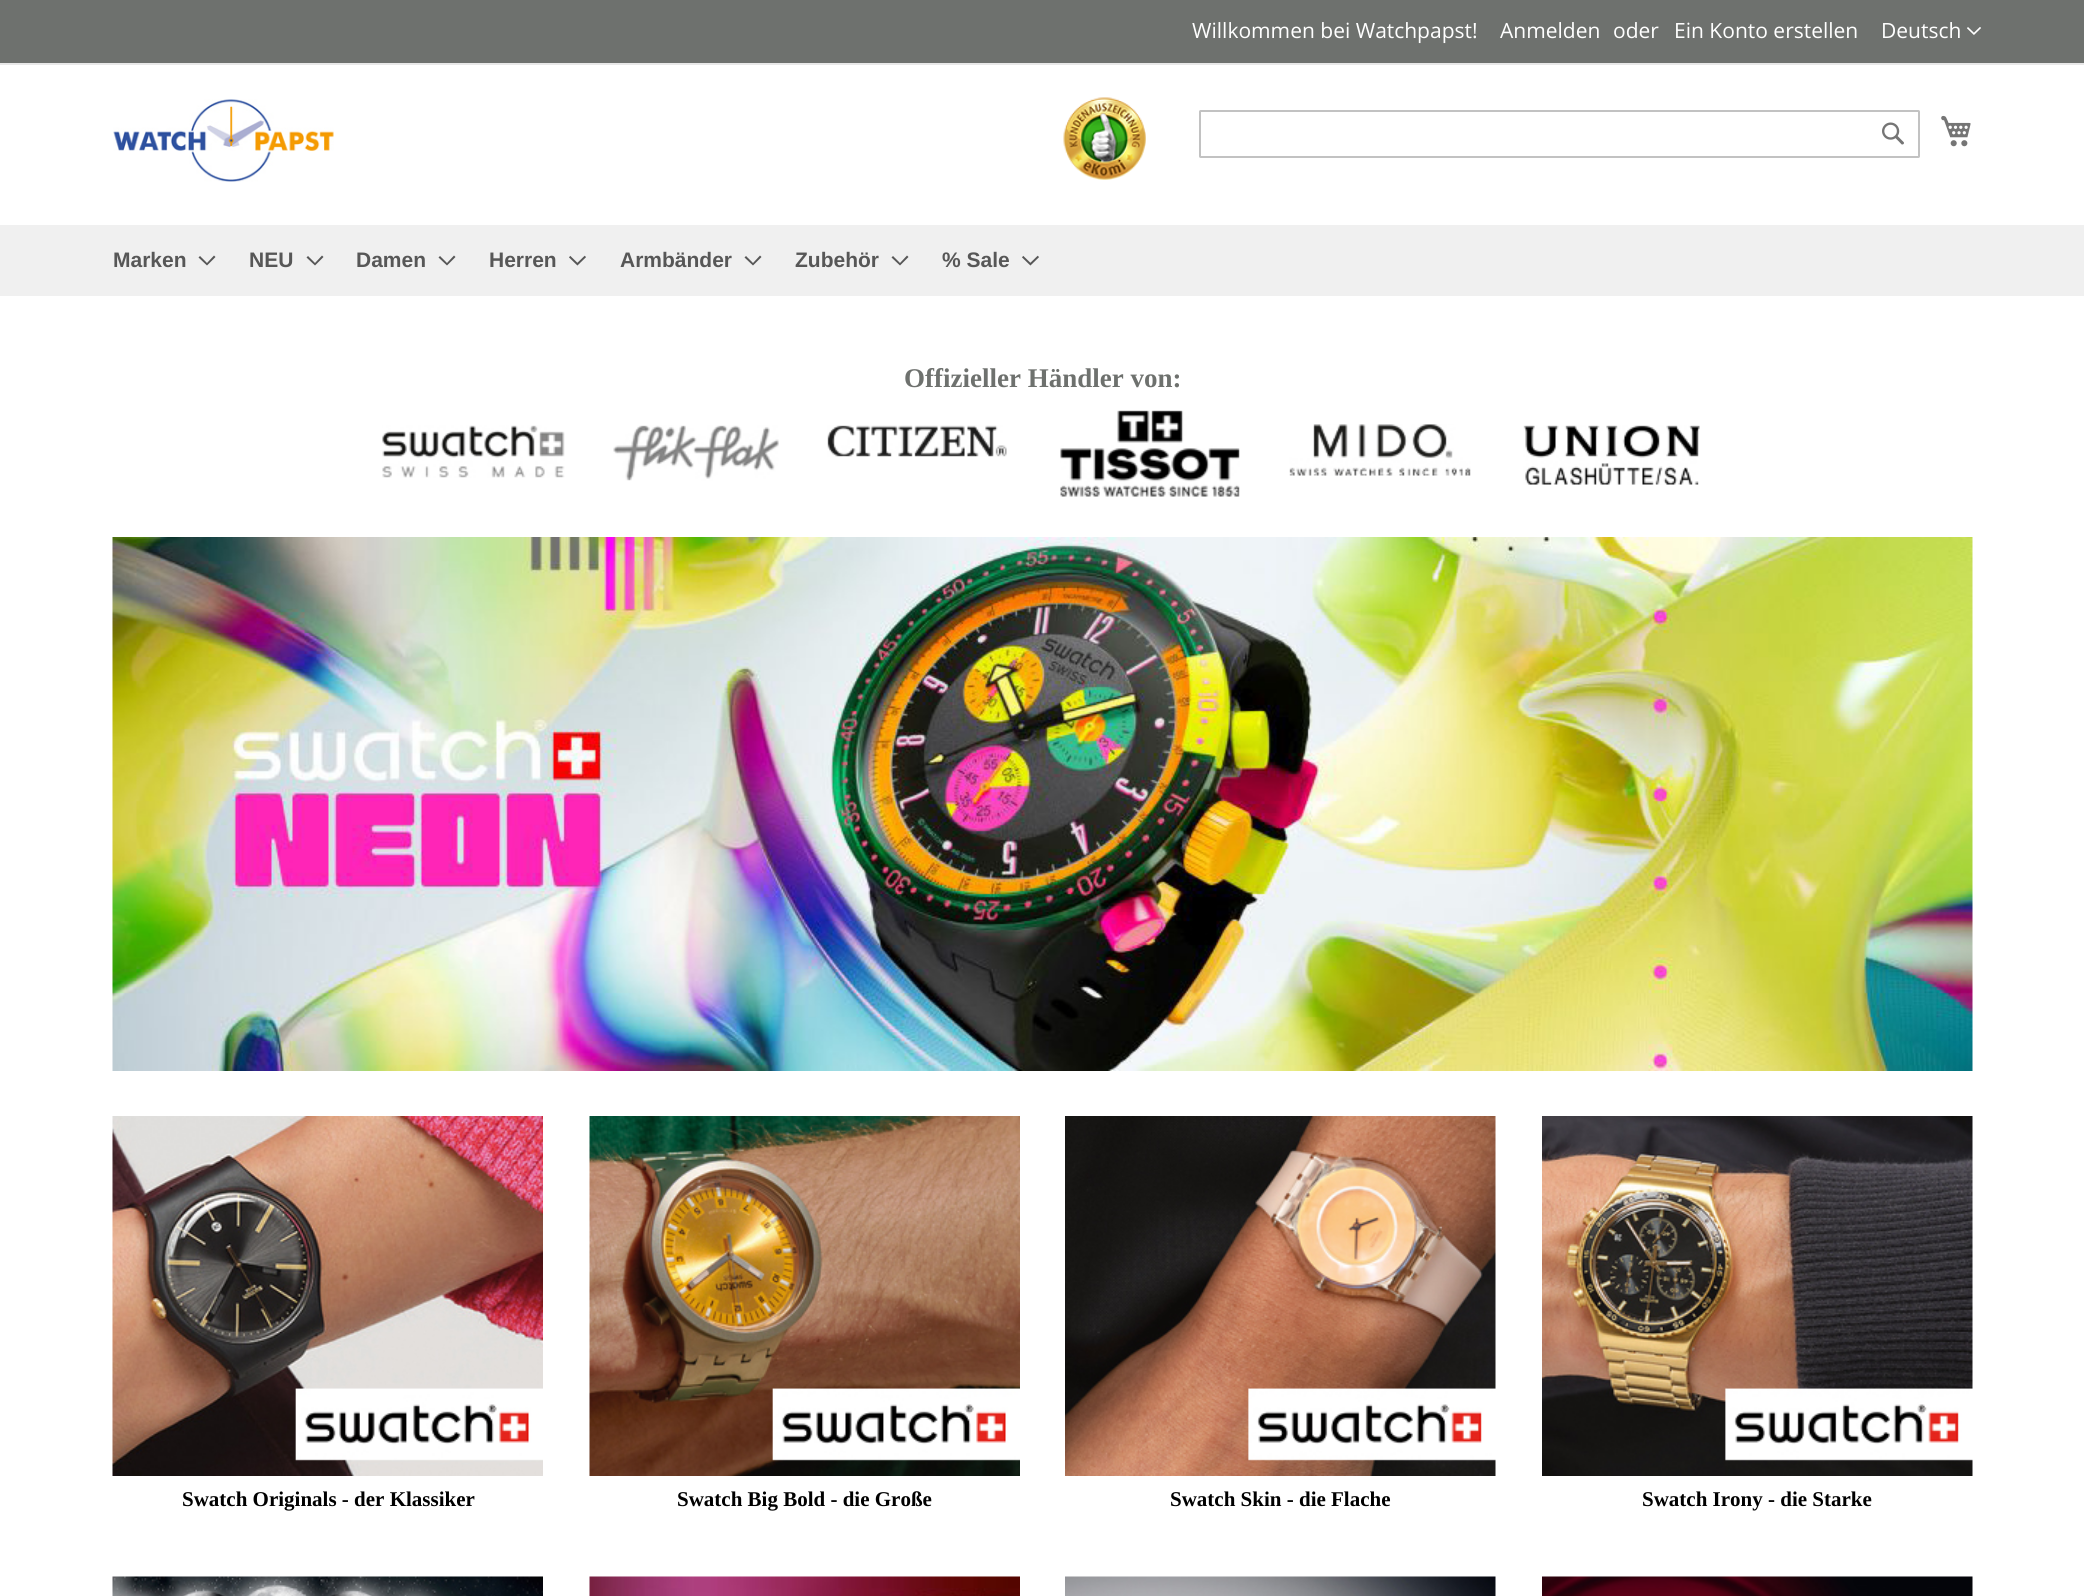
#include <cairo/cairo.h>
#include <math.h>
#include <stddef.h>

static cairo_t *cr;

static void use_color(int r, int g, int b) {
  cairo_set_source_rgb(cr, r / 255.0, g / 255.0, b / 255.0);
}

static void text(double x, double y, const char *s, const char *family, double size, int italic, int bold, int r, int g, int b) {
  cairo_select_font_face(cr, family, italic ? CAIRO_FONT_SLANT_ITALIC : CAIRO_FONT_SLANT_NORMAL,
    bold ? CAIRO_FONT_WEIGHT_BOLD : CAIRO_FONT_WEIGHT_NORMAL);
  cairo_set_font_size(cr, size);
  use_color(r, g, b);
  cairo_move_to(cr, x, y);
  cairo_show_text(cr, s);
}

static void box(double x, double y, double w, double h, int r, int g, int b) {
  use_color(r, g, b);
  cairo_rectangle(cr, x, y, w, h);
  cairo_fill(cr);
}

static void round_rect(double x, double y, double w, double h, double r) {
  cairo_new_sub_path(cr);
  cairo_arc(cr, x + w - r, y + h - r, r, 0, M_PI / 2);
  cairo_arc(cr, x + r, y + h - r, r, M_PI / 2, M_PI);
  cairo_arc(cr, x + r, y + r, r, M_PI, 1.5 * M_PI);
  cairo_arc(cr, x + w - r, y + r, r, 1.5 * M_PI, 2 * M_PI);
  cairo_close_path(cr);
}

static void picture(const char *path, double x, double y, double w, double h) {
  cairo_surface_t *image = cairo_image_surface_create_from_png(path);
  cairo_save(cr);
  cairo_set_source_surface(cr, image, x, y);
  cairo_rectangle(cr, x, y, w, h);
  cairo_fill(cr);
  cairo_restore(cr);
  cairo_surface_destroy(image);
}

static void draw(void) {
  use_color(255, 255, 255);
  cairo_paint(cr);
  box(0, 0, 2084, 63, 110, 113, 110);
  box(0, 63, 2084, 2, 232, 232, 232);
  picture("img_01.png", 1967, 27, 14, 8);
  picture("img_02.png", 113, 99, 221, 83);
  picture("img_03.png", 1063, 97, 83, 83);
  round_rect(1200, 111, 719, 46, 0.5);
  use_color(194, 194, 194);
  cairo_stroke(cr);
  picture("img_04.png", 1882, 122, 22, 23);
  picture("img_05.png", 1941, 115, 30, 32);
  box(0, 225, 2084, 71, 240, 240, 240);
  use_color(87, 87, 87);
  cairo_new_path(cr);
  cairo_move_to(cr, 207, 263);
  cairo_line_to(cr, 200, 256);
  cairo_line_to(cr, 198.5, 257.5);
  cairo_line_to(cr, 207, 265.5);
  cairo_line_to(cr, 215.5, 257);
  cairo_line_to(cr, 214, 255.5);
  cairo_close_path(cr);
  cairo_fill(cr);
  cairo_new_path(cr);
  cairo_move_to(cr, 315, 263);
  cairo_line_to(cr, 308, 256);
  cairo_line_to(cr, 306.5, 257.5);
  cairo_line_to(cr, 315, 265.5);
  cairo_line_to(cr, 323.5, 257);
  cairo_line_to(cr, 322, 255.5);
  cairo_close_path(cr);
  cairo_fill(cr);
  cairo_new_path(cr);
  cairo_move_to(cr, 447, 263);
  cairo_line_to(cr, 440, 256);
  cairo_line_to(cr, 438.5, 257.5);
  cairo_line_to(cr, 447, 265.5);
  cairo_line_to(cr, 455.5, 257);
  cairo_line_to(cr, 454, 255.5);
  cairo_close_path(cr);
  cairo_fill(cr);
  picture("img_06.png", 569, 255, 17, 11);
  cairo_new_path(cr);
  cairo_move_to(cr, 753, 263);
  cairo_line_to(cr, 746, 256);
  cairo_line_to(cr, 744.5, 257.5);
  cairo_line_to(cr, 753, 265.5);
  cairo_line_to(cr, 761.5, 257);
  cairo_line_to(cr, 760, 255.5);
  cairo_close_path(cr);
  cairo_fill(cr);
  cairo_new_path(cr);
  cairo_move_to(cr, 900, 263);
  cairo_line_to(cr, 893, 256);
  cairo_line_to(cr, 891.5, 257.5);
  cairo_line_to(cr, 900, 265.5);
  cairo_line_to(cr, 908.5, 257);
  cairo_line_to(cr, 907, 255.5);
  cairo_close_path(cr);
  cairo_fill(cr);
  picture("img_06.png", 1022, 255, 17, 11);
  picture("img_07.png", 382, 425, 183, 53);
  picture("img_08.png", 613, 425, 166, 56);
  picture("img_09.png", 827, 425, 180, 32);
  picture("img_10.png", 1060, 410, 180, 87);
  picture("img_11.png", 1289, 424, 182, 52);
  picture("img_12.png", 1523, 425, 177, 60);
  picture("img_13.png", 112, 537, 1861, 534);
  picture("img_14.png", 112, 1116, 431, 360);
  picture("img_15.png", 589, 1116, 431, 360);
  picture("img_16.png", 1065, 1116, 431, 360);
  picture("img_17.png", 1542, 1116, 431, 360);
  picture("img_18.png", 112, 1576, 431, 20);
  picture("img_19.png", 589, 1576, 431, 20);
  picture("img_20.png", 1065, 1576, 431, 20);
  picture("img_21.png", 1542, 1576, 431, 20);
  text(1192, 38, "Willkommen bei Watchpapst!", "Open Sans", 21, 0, 0, 255, 255, 255);
  text(1500, 38, "Anmelden", "Open Sans", 21, 0, 0, 255, 255, 255);
  text(1613, 38, "oder", "Open Sans", 21, 0, 0, 255, 255, 255);
  text(1674, 38, "Ein Konto erstellen", "Open Sans", 21, 0, 0, 255, 255, 255);
  text(1881, 38, "Deutsch", "Open Sans", 21, 0, 0, 255, 255, 255);
  text(113, 267, "Marken", "Liberation Sans", 21, 0, 1, 87, 87, 87);
  text(249, 267, "NEU", "Liberation Sans", 21, 0, 1, 87, 87, 87);
  text(356, 267, "Damen", "Liberation Sans", 21, 0, 1, 87, 87, 87);
  text(489, 267, "Herren", "Liberation Sans", 21, 0, 1, 87, 87, 87);
  text(620, 267, "Armbänder", "Liberation Sans", 21, 0, 1, 87, 87, 87);
  text(795, 267, "Zubehör", "Liberation Sans", 21, 0, 1, 87, 87, 87);
  text(942, 267, "% Sale", "Liberation Sans", 21, 0, 1, 87, 87, 87);
  text(904, 387, "Offizieller Händler von:", "Liberation Serif", 27, 0, 1, 110, 113, 110);
  text(182, 1506, "Swatch Originals - der Klassiker", "Liberation Serif", 21, 0, 1, 0, 0, 0);
  text(677, 1506, "Swatch Big Bold - die Große", "Liberation Serif", 21, 0, 1, 0, 0, 0);
  text(1170, 1506, "Swatch Skin - die Flache", "Liberation Serif", 21, 0, 1, 0, 0, 0);
  text(1642, 1506, "Swatch Irony - die Starke", "Liberation Serif", 21, 0, 1, 0, 0, 0);
}

int main(void) {
  cairo_surface_t *surface = cairo_image_surface_create(CAIRO_FORMAT_RGB24, 2084, 1596);
  cr = cairo_create(surface);
  cairo_font_options_t *options = cairo_font_options_create();
  cairo_font_options_set_hint_metrics(options, CAIRO_HINT_METRICS_OFF);
  cairo_font_options_set_hint_style(options, CAIRO_HINT_STYLE_NONE);
  cairo_set_font_options(cr, options);
  cairo_set_miter_limit(cr, 4);
  draw();
  cairo_surface_write_to_png(surface, "out.png");
  cairo_font_options_destroy(options);
  cairo_destroy(cr);
  cairo_surface_destroy(surface);
  return 0;
}
